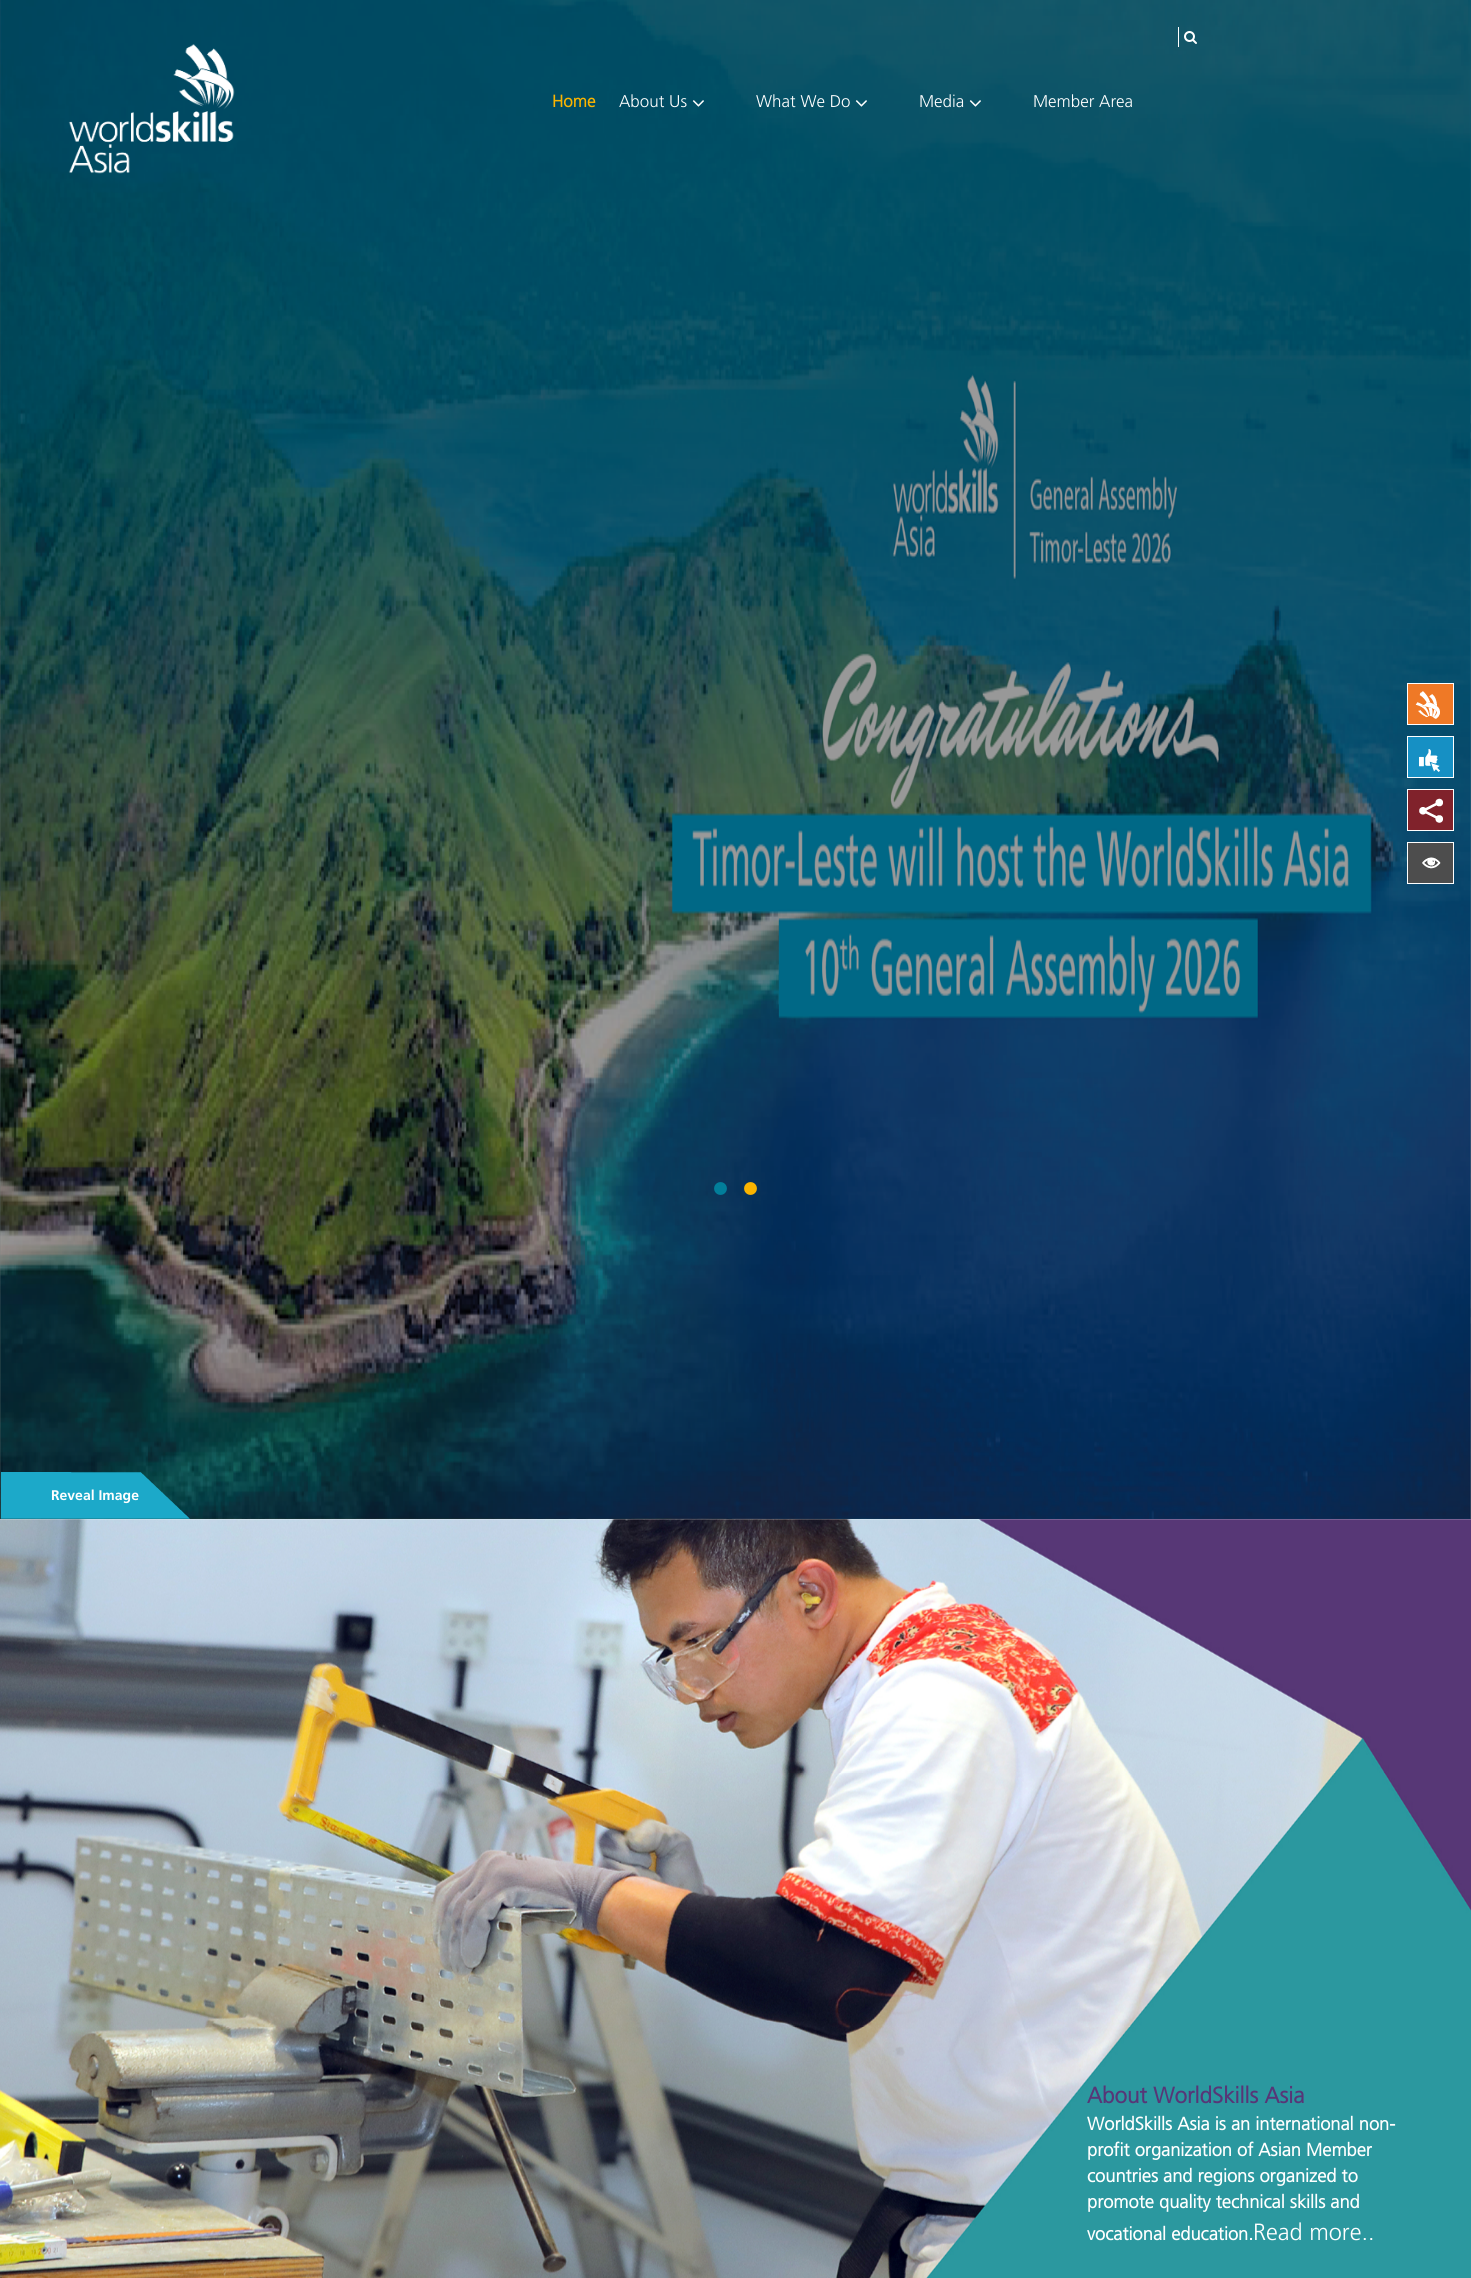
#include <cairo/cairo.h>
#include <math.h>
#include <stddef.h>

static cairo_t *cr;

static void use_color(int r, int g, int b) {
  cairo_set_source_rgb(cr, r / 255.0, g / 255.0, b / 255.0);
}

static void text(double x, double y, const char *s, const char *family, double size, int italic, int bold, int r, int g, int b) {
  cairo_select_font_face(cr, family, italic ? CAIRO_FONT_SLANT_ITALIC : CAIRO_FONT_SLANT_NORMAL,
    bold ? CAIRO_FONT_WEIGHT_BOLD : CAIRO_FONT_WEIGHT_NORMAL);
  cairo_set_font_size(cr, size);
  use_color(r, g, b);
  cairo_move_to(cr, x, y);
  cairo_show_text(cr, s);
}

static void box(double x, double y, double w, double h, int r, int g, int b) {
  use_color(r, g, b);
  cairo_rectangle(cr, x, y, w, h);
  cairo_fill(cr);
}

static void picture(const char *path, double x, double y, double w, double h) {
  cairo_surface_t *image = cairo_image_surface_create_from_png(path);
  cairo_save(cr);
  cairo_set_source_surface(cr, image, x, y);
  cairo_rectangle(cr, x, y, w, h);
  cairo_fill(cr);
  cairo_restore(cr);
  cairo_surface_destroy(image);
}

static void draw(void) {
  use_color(255, 255, 255);
  cairo_paint(cr);
  picture("img_12.png", 0, 0, 1471, 1519);
  picture("img_13.png", 0, 0, 1471, 1519);
  picture("img_01.png", 68, 44, 167, 130);
  box(1178, 27, 1, 20, 255, 255, 255);
  picture("img_02.png", 1184, 31, 13, 13);
  picture("img_03.png", 692, 100, 12, 7);
  picture("img_04.png", 855, 100, 12, 7);
  picture("img_05.png", 969, 100, 12, 7);
  box(1408, 684, 45, 40, 239, 121, 38);
  picture("img_06.png", 1415, 691, 25, 28);
  cairo_rectangle(cr, 1407.5, 683.5, 46, 41);
  use_color(255, 255, 255);
  cairo_set_line_width(cr, 1);
  cairo_stroke(cr);
  box(1408, 737, 45, 40, 22, 144, 196);
  picture("img_07.png", 1419, 749, 21, 23);
  cairo_rectangle(cr, 1407.5, 736.5, 46, 41);
  use_color(255, 255, 255);
  cairo_stroke(cr);
  box(1408, 790, 45, 40, 128, 34, 43);
  picture("img_08.png", 1419, 798, 24, 25);
  cairo_rectangle(cr, 1407.5, 789.5, 46, 41);
  use_color(255, 255, 255);
  cairo_stroke(cr);
  box(1408, 843, 45, 40, 77, 77, 77);
  picture("img_09.png", 1422, 857, 19, 12);
  cairo_rectangle(cr, 1407.5, 842.5, 46, 41);
  use_color(255, 255, 255);
  cairo_stroke(cr);
  picture("img_10.png", 714, 1182, 13, 13);
  picture("img_11.png", 744, 1182, 13, 13);
  picture("img_14.png", 1, 1472, 189, 47);
  picture("img_15.png", 0, 1519, 1471, 759);
  text(552, 107, "Home", "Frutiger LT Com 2", 17, 0, 1, 251, 180, 0);
  text(619, 107, "About Us", "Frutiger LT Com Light", 17, 0, 0, 255, 255, 255);
  text(756, 107, "What We Do", "Frutiger LT Com Light", 17, 0, 0, 255, 255, 255);
  text(919, 107, "Media", "Frutiger LT Com Light", 17, 0, 0, 255, 255, 255);
  text(1033, 107, "Member Area", "Frutiger LT Com Light", 17, 0, 0, 255, 255, 255);
  text(51, 1500, "Reveal Image", "Frutiger LT Com", 14, 0, 1, 255, 255, 255);
  text(1087, 2103, "About WorldSkills Asia", "Frutiger LT Com 2", 22.5, 0, 1, 87, 54, 119);
  text(1087, 2130, "WorldSkills Asia is an international non-", "Frutiger LT Com 2", 18.25, 0, 1, 255, 255, 255);
  text(1087, 2156, "profit organization of Asian Member", "Frutiger LT Com 2", 18.25, 0, 1, 255, 255, 255);
  text(1087, 2182, "countries and regions organized to", "Frutiger LT Com 2", 18.25, 0, 1, 255, 255, 255);
  text(1087, 2208, "promote quality technical skills and", "Frutiger LT Com 2", 18.25, 0, 1, 255, 255, 255);
  text(1087, 2240, "vocational education.", "Frutiger LT Com 2", 18.25, 0, 1, 255, 255, 255);
  text(1253, 2240, "Read more..", "Frutiger LT Com Light", 23.5, 0, 0, 255, 255, 255);
}

int main(void) {
  cairo_surface_t *surface = cairo_image_surface_create(CAIRO_FORMAT_RGB24, 1471, 2278);
  cr = cairo_create(surface);
  cairo_font_options_t *options = cairo_font_options_create();
  cairo_font_options_set_hint_metrics(options, CAIRO_HINT_METRICS_OFF);
  cairo_font_options_set_hint_style(options, CAIRO_HINT_STYLE_NONE);
  cairo_set_font_options(cr, options);
  cairo_set_miter_limit(cr, 4);
  draw();
  cairo_surface_write_to_png(surface, "out.png");
  cairo_font_options_destroy(options);
  cairo_destroy(cr);
  cairo_surface_destroy(surface);
  return 0;
}
